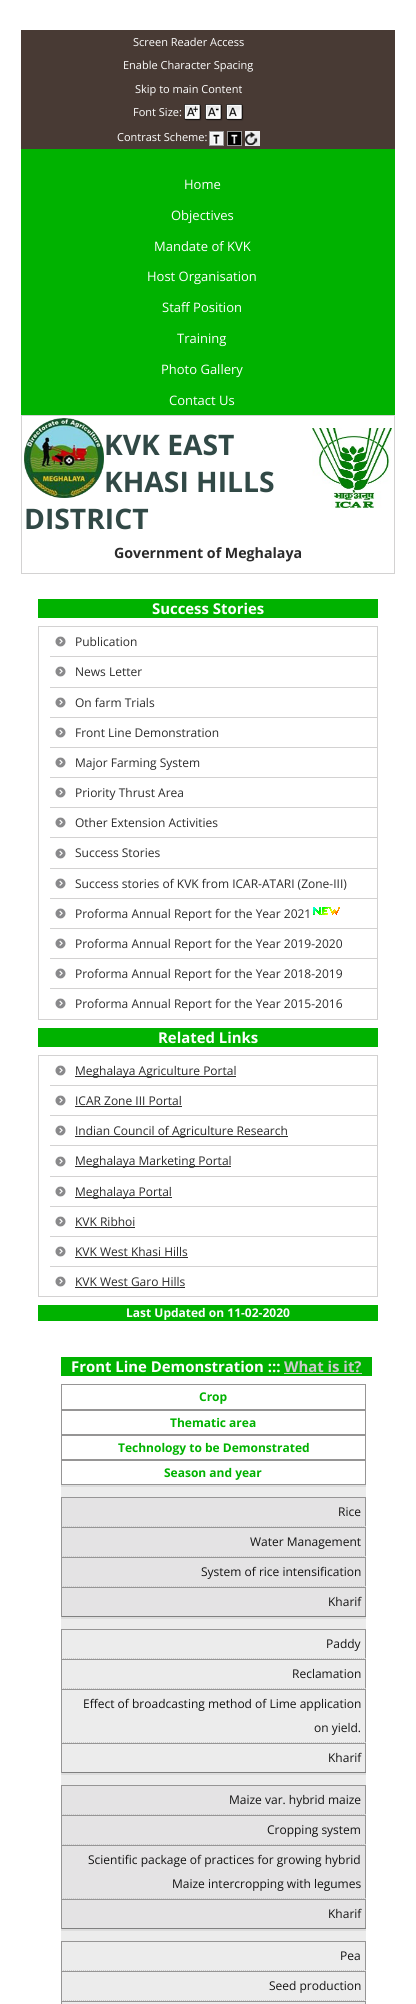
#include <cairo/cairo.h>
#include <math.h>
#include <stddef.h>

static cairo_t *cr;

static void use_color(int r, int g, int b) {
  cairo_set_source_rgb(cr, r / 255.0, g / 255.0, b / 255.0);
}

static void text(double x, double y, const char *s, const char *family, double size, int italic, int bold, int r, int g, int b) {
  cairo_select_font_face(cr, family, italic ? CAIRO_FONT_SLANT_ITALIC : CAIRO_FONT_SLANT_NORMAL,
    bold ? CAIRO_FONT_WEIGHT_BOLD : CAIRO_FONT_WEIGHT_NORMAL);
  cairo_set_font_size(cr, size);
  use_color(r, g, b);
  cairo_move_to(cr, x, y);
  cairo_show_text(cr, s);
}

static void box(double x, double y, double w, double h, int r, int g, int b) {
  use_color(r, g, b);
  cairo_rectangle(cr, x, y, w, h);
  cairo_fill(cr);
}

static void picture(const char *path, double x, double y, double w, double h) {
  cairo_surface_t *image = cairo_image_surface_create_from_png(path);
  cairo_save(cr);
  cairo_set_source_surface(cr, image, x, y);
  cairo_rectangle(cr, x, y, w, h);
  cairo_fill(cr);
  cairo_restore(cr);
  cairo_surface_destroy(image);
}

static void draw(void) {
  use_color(255, 255, 255);
  cairo_paint(cr);
  box(21, 30, 374, 119, 72, 58, 52);
  picture("img_01.png", 184, 104, 18, 17);
  picture("img_02.png", 205, 104, 18, 17);
  picture("img_03.png", 226, 104, 18, 17);
  picture("img_04.png", 209, 131, 15, 15);
  picture("img_05.png", 227, 131, 15, 15);
  picture("img_06.png", 245, 131, 15, 15);
  box(21, 149, 374, 266, 0, 178, 0);
  cairo_rectangle(cr, 21.5, 415.5, 373, 158);
  use_color(211, 210, 210);
  cairo_set_line_width(cr, 1);
  cairo_stroke(cr);
  picture("img_07.png", 24, 418, 80, 80);
  picture("img_08.png", 312, 428, 80, 80);
  box(38, 599, 340, 19, 0, 178, 0);
  cairo_rectangle(cr, 38.5, 626.5, 339, 393);
  use_color(211, 210, 210);
  cairo_stroke(cr);
  picture("img_09.png", 55, 636, 11, 11);
  box(50, 656, 327, 1, 211, 210, 210);
  picture("img_09.png", 55, 666, 11, 11);
  box(50, 687, 327, 1, 211, 210, 210);
  picture("img_09.png", 55, 697, 11, 11);
  box(50, 717, 327, 1, 211, 210, 210);
  picture("img_09.png", 55, 727, 11, 11);
  box(50, 747, 327, 1, 211, 210, 210);
  picture("img_09.png", 55, 757, 11, 11);
  box(50, 777, 327, 1, 211, 210, 210);
  picture("img_09.png", 55, 787, 11, 11);
  box(50, 807, 327, 1, 211, 210, 210);
  picture("img_09.png", 55, 817, 11, 11);
  box(50, 837, 327, 1, 211, 210, 210);
  picture("img_09.png", 55, 848, 11, 11);
  box(50, 868, 327, 1, 211, 210, 210);
  picture("img_09.png", 55, 878, 11, 11);
  box(50, 898, 327, 1, 211, 210, 210);
  picture("img_09.png", 55, 908, 11, 11);
  box(50, 928, 327, 1, 211, 210, 210);
  picture("img_10.png", 313, 907, 27, 8);
  picture("img_09.png", 55, 938, 11, 11);
  box(50, 958, 327, 1, 211, 210, 210);
  picture("img_09.png", 55, 968, 11, 11);
  box(50, 988, 327, 1, 211, 210, 210);
  picture("img_09.png", 55, 998, 11, 11);
  box(38, 1028, 340, 19, 0, 178, 0);
  cairo_rectangle(cr, 38.5, 1055.5, 339, 241);
  use_color(211, 210, 210);
  cairo_stroke(cr);
  picture("img_09.png", 55, 1065, 11, 11);
  box(50, 1085, 327, 1, 211, 210, 210);
  box(75, 1076, 161, 1, 43, 43, 43);
  picture("img_09.png", 55, 1095, 11, 11);
  box(50, 1115, 327, 1, 211, 210, 210);
  box(75, 1106, 107, 1, 43, 43, 43);
  picture("img_09.png", 55, 1125, 11, 11);
  box(50, 1145, 327, 1, 211, 210, 210);
  box(75, 1136, 213, 1, 43, 43, 43);
  picture("img_09.png", 55, 1156, 11, 11);
  box(50, 1176, 327, 1, 211, 210, 210);
  box(75, 1166, 156, 1, 43, 43, 43);
  picture("img_09.png", 55, 1186, 11, 11);
  box(50, 1206, 327, 1, 211, 210, 210);
  box(75, 1197, 97, 1, 43, 43, 43);
  picture("img_09.png", 55, 1216, 11, 11);
  box(50, 1236, 327, 1, 211, 210, 210);
  box(75, 1227, 60, 1, 43, 43, 43);
  picture("img_09.png", 55, 1246, 11, 11);
  box(50, 1266, 327, 1, 211, 210, 210);
  box(75, 1257, 113, 1, 43, 43, 43);
  picture("img_09.png", 55, 1276, 11, 11);
  box(75, 1287, 110, 1, 43, 43, 43);
  box(38, 1305, 340, 16, 0, 178, 0);
  box(61, 1357, 311, 19, 0, 178, 0);
  box(284, 1373, 78, 1, 204, 204, 204);
  box(61, 1487, 305, 517, 236, 236, 236);
  box(61, 1485, 305, 2, 221, 221, 221);
  cairo_rectangle(cr, 61.5, 1384.5, 304, 25);
  use_color(150, 149, 149);
  cairo_stroke(cr);
  cairo_rectangle(cr, 61.5, 1410.5, 304, 24);
  cairo_stroke(cr);
  cairo_rectangle(cr, 61.5, 1435.5, 304, 24);
  cairo_stroke(cr);
  cairo_rectangle(cr, 61.5, 1460.5, 304, 24);
  cairo_stroke(cr);
  box(62, 1498, 303, 118, 228, 227, 228);
  box(61, 1617, 305, 2, 221, 221, 221);
  box(61, 1497, 305, 1, 150, 149, 149);
  box(365, 1497, 1, 30, 150, 149, 149);
  cairo_new_path(cr);
  cairo_move_to(cr, 61, 1526.5);
  cairo_line_to(cr, 366, 1526.5);
  use_color(204, 204, 204);
  cairo_set_dash(cr, (double[]){1, 1}, 2, 0);
  cairo_stroke(cr);
  box(61, 1497, 1, 30, 150, 149, 149);
  box(61, 1527, 305, 1, 150, 149, 149);
  box(365, 1527, 1, 30, 150, 149, 149);
  cairo_new_path(cr);
  cairo_move_to(cr, 61, 1556.5);
  cairo_line_to(cr, 366, 1556.5);
  use_color(204, 204, 204);
  cairo_stroke(cr);
  box(61, 1527, 1, 30, 150, 149, 149);
  box(61, 1557, 305, 1, 150, 149, 149);
  box(365, 1557, 1, 30, 150, 149, 149);
  cairo_new_path(cr);
  cairo_move_to(cr, 61, 1586.5);
  cairo_line_to(cr, 366, 1586.5);
  use_color(204, 204, 204);
  cairo_stroke(cr);
  box(61, 1557, 1, 30, 150, 149, 149);
  box(61, 1587, 305, 1, 150, 149, 149);
  box(365, 1587, 1, 30, 150, 149, 149);
  box(61, 1616, 305, 1, 128, 128, 128);
  box(61, 1587, 1, 30, 150, 149, 149);
  box(61, 1773, 305, 2, 221, 221, 221);
  box(61, 1629, 305, 1, 150, 149, 149);
  box(365, 1629, 1, 30, 150, 149, 149);
  cairo_new_path(cr);
  cairo_move_to(cr, 61, 1658.5);
  cairo_line_to(cr, 366, 1658.5);
  use_color(204, 204, 204);
  cairo_stroke(cr);
  box(61, 1629, 1, 30, 150, 149, 149);
  box(61, 1659, 305, 1, 150, 149, 149);
  box(365, 1659, 1, 30, 150, 149, 149);
  cairo_new_path(cr);
  cairo_move_to(cr, 61, 1688.5);
  cairo_line_to(cr, 366, 1688.5);
  use_color(204, 204, 204);
  cairo_stroke(cr);
  box(61, 1659, 1, 30, 150, 149, 149);
  box(61, 1689, 305, 1, 150, 149, 149);
  box(365, 1689, 1, 54, 150, 149, 149);
  cairo_new_path(cr);
  cairo_move_to(cr, 61, 1742.5);
  cairo_line_to(cr, 366, 1742.5);
  use_color(204, 204, 204);
  cairo_stroke(cr);
  box(61, 1689, 1, 54, 150, 149, 149);
  box(61, 1743, 305, 1, 150, 149, 149);
  box(365, 1743, 1, 30, 150, 149, 149);
  box(61, 1772, 305, 1, 128, 128, 128);
  box(61, 1743, 1, 30, 150, 149, 149);
  box(62, 1786, 303, 142, 228, 227, 228);
  box(61, 1929, 305, 2, 221, 221, 221);
  box(61, 1785, 305, 1, 150, 149, 149);
  box(365, 1785, 1, 30, 150, 149, 149);
  cairo_new_path(cr);
  cairo_move_to(cr, 61, 1814.5);
  cairo_line_to(cr, 366, 1814.5);
  use_color(204, 204, 204);
  cairo_stroke(cr);
  box(61, 1785, 1, 30, 150, 149, 149);
  box(61, 1815, 305, 1, 150, 149, 149);
  box(365, 1815, 1, 30, 150, 149, 149);
  cairo_new_path(cr);
  cairo_move_to(cr, 61, 1844.5);
  cairo_line_to(cr, 366, 1844.5);
  use_color(204, 204, 204);
  cairo_stroke(cr);
  box(61, 1815, 1, 30, 150, 149, 149);
  box(61, 1845, 305, 1, 150, 149, 149);
  box(365, 1845, 1, 54, 150, 149, 149);
  cairo_new_path(cr);
  cairo_move_to(cr, 61, 1898.5);
  cairo_line_to(cr, 366, 1898.5);
  use_color(204, 204, 204);
  cairo_stroke(cr);
  box(61, 1845, 1, 54, 150, 149, 149);
  box(61, 1899, 305, 1, 150, 149, 149);
  box(365, 1899, 1, 30, 150, 149, 149);
  box(61, 1928, 305, 1, 128, 128, 128);
  box(61, 1899, 1, 30, 150, 149, 149);
  box(61, 1941, 305, 1, 150, 149, 149);
  box(365, 1941, 1, 30, 150, 149, 149);
  cairo_new_path(cr);
  cairo_move_to(cr, 61, 1970.5);
  cairo_line_to(cr, 366, 1970.5);
  use_color(204, 204, 204);
  cairo_stroke(cr);
  box(61, 1941, 1, 30, 150, 149, 149);
  box(61, 1971, 305, 1, 150, 149, 149);
  box(365, 1971, 1, 30, 150, 149, 149);
  cairo_new_path(cr);
  cairo_move_to(cr, 61, 2000.5);
  cairo_line_to(cr, 366, 2000.5);
  use_color(204, 204, 204);
  cairo_stroke(cr);
  box(61, 1971, 1, 30, 150, 149, 149);
  box(61, 2001, 305, 1, 150, 149, 149);
  box(365, 2001, 1, 3, 150, 149, 149);
  box(61, 2001, 1, 3, 150, 149, 149);
  text(133, 46, "Screen Reader Access", "Open Sans", 11, 0, 0, 255, 255, 255);
  text(123, 69, "Enable Character Spacing", "Open Sans", 11, 0, 0, 255, 255, 255);
  text(135, 93, "Skip to main Content", "Open Sans", 11, 0, 0, 255, 255, 255);
  text(133, 116, "Font Size:", "Open Sans", 11, 0, 0, 255, 255, 255);
  text(117, 141, "Contrast Scheme:", "Open Sans", 11, 0, 0, 255, 255, 255);
  text(184, 189, "Home", "Open Sans", 13, 0, 0, 255, 255, 255);
  text(171, 220, "Objectives", "Open Sans", 13, 0, 0, 255, 255, 255);
  text(154, 251, "Mandate of KVK", "Open Sans", 13, 0, 0, 255, 255, 255);
  text(147, 281, "Host Organisation", "Open Sans", 13, 0, 0, 255, 255, 255);
  text(162, 312, "Staff Position", "Open Sans", 13, 0, 0, 255, 255, 255);
  text(177, 343, "Training", "Open Sans", 13, 0, 0, 255, 255, 255);
  text(161, 374, "Photo Gallery", "Open Sans", 13, 0, 0, 255, 255, 255);
  text(169, 405, "Contact Us", "Open Sans", 13, 0, 0, 255, 255, 255);
  text(104, 455, "KVK EAST", "Open Sans", 28.25, 0, 1, 49, 73, 70);
  text(104, 492, "KHASI HILLS", "Open Sans", 28.25, 0, 1, 49, 73, 70);
  text(24, 529, "DISTRICT", "Open Sans", 28.25, 0, 1, 49, 73, 70);
  text(114, 558, "Government of Meghalaya", "Open Sans", 14.2, 0, 1, 43, 43, 43);
  text(152, 614, "Success Stories", "Open Sans", 14.9, 0, 1, 255, 255, 255);
  text(75, 646, "Publication", "Open Sans", 12, 0, 0, 43, 43, 43);
  text(75, 676, "News Letter", "Open Sans", 12, 0, 0, 43, 43, 43);
  text(75, 707, "On farm Trials", "Open Sans", 12, 0, 0, 43, 43, 43);
  text(75, 737, "Front Line Demonstration", "Open Sans", 12, 0, 0, 43, 43, 43);
  text(75, 767, "Major Farming System", "Open Sans", 12, 0, 0, 43, 43, 43);
  text(75, 797, "Priority Thrust Area", "Open Sans", 12, 0, 0, 43, 43, 43);
  text(75, 827, "Other Extension Activities", "Open Sans", 12, 0, 0, 43, 43, 43);
  text(75, 857, "Success Stories", "Open Sans", 12, 0, 0, 43, 43, 43);
  text(75, 888, "Success stories of KVK from ICAR-ATARI (Zone-III)", "Open Sans", 12, 0, 0, 43, 43, 43);
  text(75, 918, "Proforma Annual Report for the Year 2021", "Open Sans", 12, 0, 0, 43, 43, 43);
  text(75, 948, "Proforma Annual Report for the Year 2019-2020", "Open Sans", 12, 0, 0, 43, 43, 43);
  text(75, 978, "Proforma Annual Report for the Year 2018-2019", "Open Sans", 12, 0, 0, 43, 43, 43);
  text(75, 1008, "Proforma Annual Report for the Year 2015-2016", "Open Sans", 12, 0, 0, 43, 43, 43);
  text(158, 1043, "Related Links", "Open Sans", 14.9, 0, 1, 255, 255, 255);
  text(75, 1075, "Meghalaya Agriculture Portal", "Open Sans", 12, 0, 0, 43, 43, 43);
  text(75, 1105, "ICAR Zone III Portal", "Open Sans", 12, 0, 0, 43, 43, 43);
  text(75, 1135, "Indian Council of Agriculture Research", "Open Sans", 12, 0, 0, 43, 43, 43);
  text(75, 1165, "Meghalaya Marketing Portal", "Open Sans", 12, 0, 0, 43, 43, 43);
  text(75, 1196, "Meghalaya Portal", "Open Sans", 12, 0, 0, 43, 43, 43);
  text(75, 1226, "KVK Ribhoi", "Open Sans", 12, 0, 0, 43, 43, 43);
  text(75, 1256, "KVK West Khasi Hills", "Open Sans", 12, 0, 0, 43, 43, 43);
  text(75, 1286, "KVK West Garo Hills", "Open Sans", 12, 0, 0, 43, 43, 43);
  text(126, 1317, "Last Updated on 11-02-2020", "Open Sans", 12, 0, 1, 255, 255, 255);
  text(71, 1372, "Front Line Demonstration :::", "Open Sans", 14.9, 0, 1, 255, 255, 255);
  text(284, 1372, "What is it?", "Open Sans", 14.9, 0, 1, 204, 204, 204);
  text(199, 1401, "Crop", "Open Sans", 12, 0, 1, 0, 178, 0);
  text(170, 1427, "Thematic area", "Open Sans", 12, 0, 1, 0, 178, 0);
  text(118, 1452, "Technology to be Demonstrated", "Open Sans", 12, 0, 1, 0, 178, 0);
  text(164, 1477, "Season and year", "Open Sans", 12, 0, 1, 0, 178, 0);
  text(338, 1516, "Rice", "Open Sans", 12, 0, 0, 19, 19, 19);
  text(250, 1546, "Water Management", "Open Sans", 12, 0, 0, 19, 19, 19);
  text(201, 1576, "System of rice intensification", "Open Sans", 12, 0, 0, 19, 19, 19);
  text(328, 1606, "Kharif", "Open Sans", 12, 0, 0, 19, 19, 19);
  text(326, 1648, "Paddy", "Open Sans", 12, 0, 0, 19, 19, 19);
  text(292, 1678, "Reclamation", "Open Sans", 12, 0, 0, 19, 19, 19);
  text(83, 1708, "Effect of broadcasting method of Lime application", "Open Sans", 12, 0, 0, 19, 19, 19);
  text(314, 1732, "on yield.", "Open Sans", 12, 0, 0, 19, 19, 19);
  text(328, 1762, "Kharif", "Open Sans", 12, 0, 0, 19, 19, 19);
  text(229, 1804, "Maize var. hybrid maize", "Open Sans", 12, 0, 0, 19, 19, 19);
  text(267, 1834, "Cropping system", "Open Sans", 12, 0, 0, 19, 19, 19);
  text(88, 1864, "Scientific package of practices for growing hybrid", "Open Sans", 12, 0, 0, 19, 19, 19);
  text(172, 1888, "Maize intercropping with legumes", "Open Sans", 12, 0, 0, 19, 19, 19);
  text(328, 1918, "Kharif", "Open Sans", 12, 0, 0, 19, 19, 19);
  text(340, 1960, "Pea", "Open Sans", 12, 0, 0, 19, 19, 19);
  text(269, 1990, "Seed production", "Open Sans", 12, 0, 0, 19, 19, 19);
}

int main(void) {
  cairo_surface_t *surface = cairo_image_surface_create(CAIRO_FORMAT_RGB24, 416, 2004);
  cr = cairo_create(surface);
  cairo_font_options_t *options = cairo_font_options_create();
  cairo_font_options_set_hint_metrics(options, CAIRO_HINT_METRICS_OFF);
  cairo_font_options_set_hint_style(options, CAIRO_HINT_STYLE_NONE);
  cairo_set_font_options(cr, options);
  cairo_set_miter_limit(cr, 4);
  draw();
  cairo_surface_write_to_png(surface, "out.png");
  cairo_font_options_destroy(options);
  cairo_destroy(cr);
  cairo_surface_destroy(surface);
  return 0;
}
